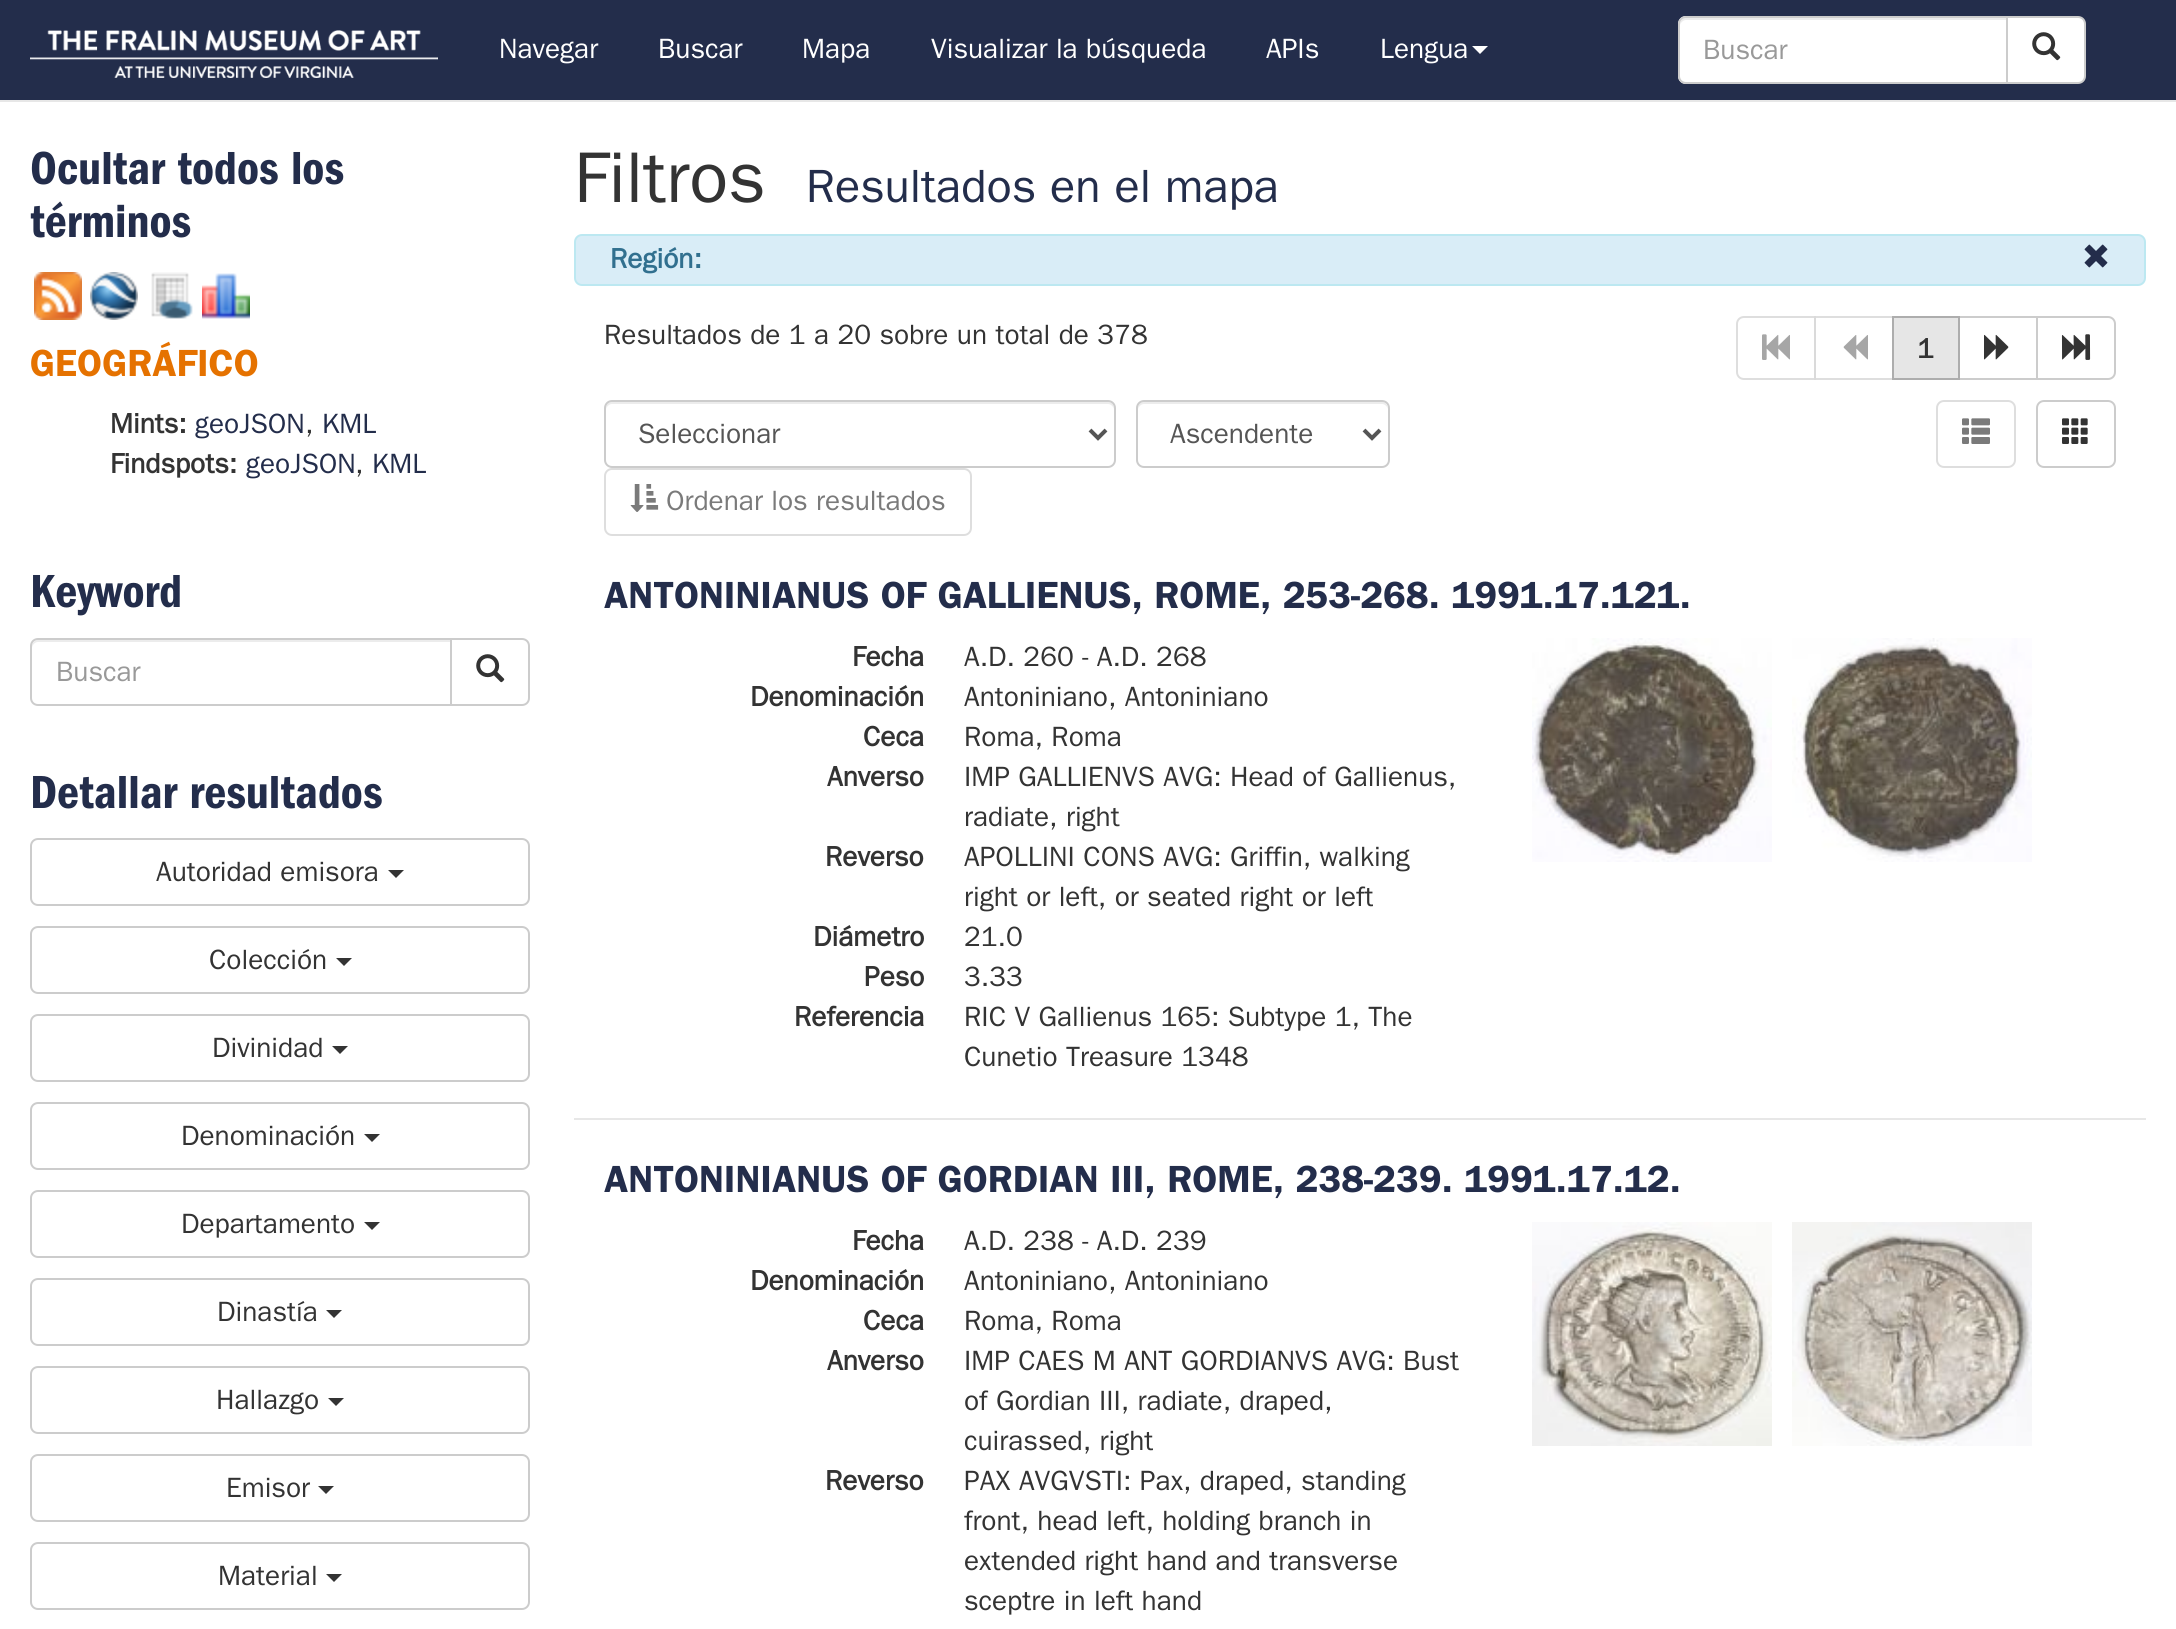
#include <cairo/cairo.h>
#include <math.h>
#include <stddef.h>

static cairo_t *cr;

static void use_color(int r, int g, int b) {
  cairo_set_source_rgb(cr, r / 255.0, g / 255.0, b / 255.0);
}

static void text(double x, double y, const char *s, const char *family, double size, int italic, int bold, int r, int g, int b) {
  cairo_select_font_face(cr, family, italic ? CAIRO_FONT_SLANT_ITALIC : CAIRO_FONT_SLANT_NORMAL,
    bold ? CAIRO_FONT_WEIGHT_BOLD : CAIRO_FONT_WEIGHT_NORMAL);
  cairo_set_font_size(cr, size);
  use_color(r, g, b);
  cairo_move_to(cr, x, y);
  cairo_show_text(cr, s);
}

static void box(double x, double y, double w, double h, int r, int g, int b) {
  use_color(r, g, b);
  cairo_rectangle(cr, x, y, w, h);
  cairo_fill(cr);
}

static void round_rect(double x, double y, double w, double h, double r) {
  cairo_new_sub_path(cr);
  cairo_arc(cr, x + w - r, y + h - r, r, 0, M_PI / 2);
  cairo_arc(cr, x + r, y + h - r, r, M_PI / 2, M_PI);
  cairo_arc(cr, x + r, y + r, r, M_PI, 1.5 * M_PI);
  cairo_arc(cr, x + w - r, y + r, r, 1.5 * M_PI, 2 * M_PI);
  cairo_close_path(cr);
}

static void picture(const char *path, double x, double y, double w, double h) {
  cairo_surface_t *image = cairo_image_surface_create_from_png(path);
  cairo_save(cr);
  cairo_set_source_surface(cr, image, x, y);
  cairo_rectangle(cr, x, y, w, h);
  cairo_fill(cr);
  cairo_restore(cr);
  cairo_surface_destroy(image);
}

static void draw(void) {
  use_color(255, 255, 255);
  cairo_paint(cr);
  box(0, 0, 2176, 100, 35, 45, 75);
  box(0, 100, 2176, 2, 231, 231, 231);
  picture("img_01.png", 30, 30, 408, 48);
  use_color(255, 255, 255);
  cairo_new_path(cr);
  cairo_move_to(cr, 1472, 46);
  cairo_line_to(cr, 1488, 46);
  cairo_line_to(cr, 1480, 54);
  cairo_close_path(cr);
  cairo_fill(cr);
  cairo_new_path(cr);
  cairo_move_to(cr, 1686, 16);
  cairo_line_to(cr, 2008, 16);
  cairo_line_to(cr, 2008, 84);
  cairo_line_to(cr, 1686, 84);
  cairo_curve_to(cr, 1681.5, 84, 1678, 80.5, 1678, 76);
  cairo_line_to(cr, 1678, 24);
  cairo_curve_to(cr, 1678, 19.5, 1681.5, 16, 1686, 16);
  cairo_close_path(cr);
  cairo_fill(cr);
  use_color(236, 236, 236);
  cairo_new_path(cr);
  cairo_move_to(cr, 1686, 20);
  cairo_line_to(cr, 2006, 20);
  cairo_line_to(cr, 2006, 18);
  cairo_line_to(cr, 1686, 18);
  cairo_curve_to(cr, 1681, 18, 1680, 22, 1680, 26);
  cairo_curve_to(cr, 1680, 23, 1683, 20, 1686, 20);
  cairo_close_path(cr);
  cairo_fill(cr);
  cairo_new_path(cr);
  cairo_move_to(cr, 1686, 17);
  cairo_line_to(cr, 2007, 17);
  cairo_line_to(cr, 2007, 83);
  cairo_line_to(cr, 1686, 83);
  cairo_curve_to(cr, 1682, 83, 1679, 80, 1679, 76);
  cairo_line_to(cr, 1679, 24);
  cairo_curve_to(cr, 1679, 20, 1682, 17, 1686, 17);
  cairo_close_path(cr);
  use_color(204, 204, 204);
  cairo_stroke(cr);
  use_color(255, 255, 255);
  cairo_new_path(cr);
  cairo_move_to(cr, 2007, 17);
  cairo_line_to(cr, 2078, 17);
  cairo_curve_to(cr, 2082, 17, 2085, 20, 2085, 24);
  cairo_line_to(cr, 2085, 76);
  cairo_curve_to(cr, 2085, 80, 2082, 83, 2078, 83);
  cairo_line_to(cr, 2007, 83);
  cairo_close_path(cr);
  cairo_fill_preserve(cr);
  use_color(204, 204, 204);
  cairo_stroke(cr);
  picture("img_02.png", 2032, 32, 29, 29);
  picture("img_03.png", 34, 272, 48, 48);
  picture("img_04.png", 90, 272, 48, 48);
  picture("img_05.png", 151, 272, 42, 47);
  picture("img_06.png", 202, 273, 48, 46);
  use_color(236, 236, 236);
  cairo_new_path(cr);
  cairo_move_to(cr, 38, 642);
  cairo_line_to(cr, 450, 642);
  cairo_line_to(cr, 450, 640);
  cairo_line_to(cr, 38, 640);
  cairo_curve_to(cr, 35, 640, 32, 643, 32, 646);
  cairo_line_to(cr, 32, 648);
  cairo_curve_to(cr, 32, 645, 35, 642, 38, 642);
  cairo_close_path(cr);
  cairo_fill(cr);
  cairo_new_path(cr);
  cairo_move_to(cr, 38, 639);
  cairo_line_to(cr, 451, 639);
  cairo_line_to(cr, 451, 705);
  cairo_line_to(cr, 38, 705);
  cairo_curve_to(cr, 34, 705, 31, 702, 31, 698);
  cairo_line_to(cr, 31, 646);
  cairo_curve_to(cr, 31, 642, 34, 639, 38, 639);
  cairo_close_path(cr);
  use_color(204, 204, 204);
  cairo_stroke(cr);
  use_color(255, 255, 255);
  cairo_new_path(cr);
  cairo_move_to(cr, 451, 639);
  cairo_line_to(cr, 522, 639);
  cairo_curve_to(cr, 526, 639, 529, 642, 529, 646);
  cairo_line_to(cr, 529, 698);
  cairo_curve_to(cr, 529, 702, 526, 705, 522, 705);
  cairo_line_to(cr, 451, 705);
  cairo_close_path(cr);
  cairo_fill_preserve(cr);
  use_color(204, 204, 204);
  cairo_stroke(cr);
  picture("img_02.png", 476, 654, 29, 29);
  round_rect(31, 839, 498, 66, 7);
  cairo_stroke(cr);
  use_color(51, 51, 51);
  cairo_new_path(cr);
  cairo_move_to(cr, 388, 870);
  cairo_line_to(cr, 404, 870);
  cairo_line_to(cr, 396, 878);
  cairo_close_path(cr);
  cairo_fill(cr);
  round_rect(31, 927, 498, 66, 7);
  use_color(204, 204, 204);
  cairo_stroke(cr);
  use_color(51, 51, 51);
  cairo_new_path(cr);
  cairo_move_to(cr, 336, 958);
  cairo_line_to(cr, 352, 958);
  cairo_line_to(cr, 344, 966);
  cairo_close_path(cr);
  cairo_fill(cr);
  round_rect(31, 1015, 498, 66, 7);
  use_color(204, 204, 204);
  cairo_stroke(cr);
  use_color(51, 51, 51);
  cairo_new_path(cr);
  cairo_move_to(cr, 332, 1046);
  cairo_line_to(cr, 348, 1046);
  cairo_line_to(cr, 340, 1054);
  cairo_close_path(cr);
  cairo_fill(cr);
  round_rect(31, 1103, 498, 66, 7);
  use_color(204, 204, 204);
  cairo_stroke(cr);
  use_color(51, 51, 51);
  cairo_new_path(cr);
  cairo_move_to(cr, 364, 1134);
  cairo_line_to(cr, 380, 1134);
  cairo_line_to(cr, 372, 1142);
  cairo_close_path(cr);
  cairo_fill(cr);
  round_rect(31, 1191, 498, 66, 7);
  use_color(204, 204, 204);
  cairo_stroke(cr);
  use_color(51, 51, 51);
  cairo_new_path(cr);
  cairo_move_to(cr, 364, 1222);
  cairo_line_to(cr, 380, 1222);
  cairo_line_to(cr, 372, 1230);
  cairo_close_path(cr);
  cairo_fill(cr);
  round_rect(31, 1279, 498, 66, 7);
  use_color(204, 204, 204);
  cairo_stroke(cr);
  use_color(51, 51, 51);
  cairo_new_path(cr);
  cairo_move_to(cr, 326, 1310);
  cairo_line_to(cr, 342, 1310);
  cairo_line_to(cr, 334, 1318);
  cairo_close_path(cr);
  cairo_fill(cr);
  round_rect(31, 1367, 498, 66, 7);
  use_color(204, 204, 204);
  cairo_stroke(cr);
  use_color(51, 51, 51);
  cairo_new_path(cr);
  cairo_move_to(cr, 328, 1398);
  cairo_line_to(cr, 344, 1398);
  cairo_line_to(cr, 336, 1406);
  cairo_close_path(cr);
  cairo_fill(cr);
  round_rect(31, 1455, 498, 66, 7);
  use_color(204, 204, 204);
  cairo_stroke(cr);
  use_color(51, 51, 51);
  cairo_new_path(cr);
  cairo_move_to(cr, 318, 1486);
  cairo_line_to(cr, 334, 1486);
  cairo_line_to(cr, 326, 1494);
  cairo_close_path(cr);
  cairo_fill(cr);
  round_rect(31, 1543, 498, 66, 7);
  use_color(204, 204, 204);
  cairo_stroke(cr);
  use_color(51, 51, 51);
  cairo_new_path(cr);
  cairo_move_to(cr, 326, 1574);
  cairo_line_to(cr, 342, 1574);
  cairo_line_to(cr, 334, 1582);
  cairo_close_path(cr);
  cairo_fill(cr);
  use_color(217, 237, 247);
  round_rect(575, 235, 1570, 50, 7);
  cairo_fill_preserve(cr);
  use_color(188, 232, 241);
  cairo_stroke(cr);
  picture("img_07.png", 2084, 244, 24, 24);
  cairo_new_path(cr);
  cairo_move_to(cr, 1744, 317);
  cairo_line_to(cr, 1815, 317);
  cairo_line_to(cr, 1815, 379);
  cairo_line_to(cr, 1744, 379);
  cairo_curve_to(cr, 1740, 379, 1737, 376, 1737, 372);
  cairo_line_to(cr, 1737, 324);
  cairo_curve_to(cr, 1737, 320, 1740, 317, 1744, 317);
  cairo_close_path(cr);
  use_color(222, 222, 222);
  cairo_stroke(cr);
  picture("img_08.png", 1762, 334, 28, 26);
  cairo_set_source_rgba(cr, 1, 1, 1, 0.65);
  cairo_rectangle(cr, 1814, 316, 2, 64);
  cairo_fill(cr);
  cairo_rectangle(cr, 1815, 317, 78, 62);
  cairo_set_source_rgba(cr, 0.8, 0.8, 0.8, 0.65);
  cairo_stroke(cr);
  picture("img_09.png", 1843, 335, 25, 25);
  cairo_rectangle(cr, 1959, 317, 78, 62);
  use_color(204, 204, 204);
  cairo_stroke(cr);
  use_color(230, 230, 230);
  cairo_rectangle(cr, 1893, 317, 66, 62);
  cairo_fill_preserve(cr);
  use_color(173, 173, 173);
  cairo_stroke(cr);
  picture("img_10.png", 1984, 334, 25, 26);
  use_color(255, 255, 255);
  cairo_new_path(cr);
  cairo_move_to(cr, 2037, 317);
  cairo_line_to(cr, 2108, 317);
  cairo_curve_to(cr, 2112, 317, 2115, 320, 2115, 324);
  cairo_line_to(cr, 2115, 372);
  cairo_curve_to(cr, 2115, 376, 2112, 379, 2108, 379);
  cairo_line_to(cr, 2037, 379);
  cairo_close_path(cr);
  cairo_fill_preserve(cr);
  use_color(204, 204, 204);
  cairo_stroke(cr);
  picture("img_11.png", 2061, 334, 30, 26);
  use_color(236, 236, 236);
  cairo_new_path(cr);
  cairo_move_to(cr, 612, 404);
  cairo_line_to(cr, 1108, 404);
  cairo_curve_to(cr, 1111, 404, 1114, 407, 1114, 410);
  cairo_curve_to(cr, 1114, 406, 1113, 402, 1108, 402);
  cairo_line_to(cr, 612, 402);
  cairo_curve_to(cr, 607, 402, 606, 406, 606, 410);
  cairo_curve_to(cr, 606, 407, 609, 404, 612, 404);
  cairo_close_path(cr);
  cairo_fill(cr);
  round_rect(605, 401, 510, 66, 7);
  use_color(204, 204, 204);
  cairo_stroke(cr);
  cairo_new_path(cr);
  cairo_move_to(cr, 1090, 430);
  cairo_line_to(cr, 1098, 438);
  cairo_line_to(cr, 1106, 430);
  use_color(85, 85, 85);
  cairo_set_line_width(cr, 4);
  cairo_stroke(cr);
  use_color(236, 236, 236);
  cairo_new_path(cr);
  cairo_move_to(cr, 1144, 404);
  cairo_line_to(cr, 1382, 404);
  cairo_curve_to(cr, 1385, 404, 1388, 407, 1388, 410);
  cairo_curve_to(cr, 1388, 407, 1387, 403, 1383, 402);
  cairo_line_to(cr, 1144, 402);
  cairo_curve_to(cr, 1139, 402, 1138, 406, 1138, 410);
  cairo_curve_to(cr, 1138, 407, 1141, 404, 1144, 404);
  cairo_close_path(cr);
  cairo_fill(cr);
  round_rect(1137, 401, 252, 66, 7);
  use_color(204, 204, 204);
  cairo_set_line_width(cr, 2);
  cairo_stroke(cr);
  cairo_new_path(cr);
  cairo_move_to(cr, 1364, 430);
  cairo_line_to(cr, 1372, 438);
  cairo_line_to(cr, 1380, 430);
  use_color(85, 85, 85);
  cairo_set_line_width(cr, 4);
  cairo_stroke(cr);
  round_rect(605, 469, 366, 66, 7);
  use_color(222, 222, 222);
  cairo_set_line_width(cr, 2);
  cairo_stroke(cr);
  picture("img_12.png", 630, 484, 29, 28);
  round_rect(1937, 401, 78, 66, 7);
  cairo_stroke(cr);
  picture("img_13.png", 1962, 418, 28, 26);
  round_rect(2037, 401, 78, 66, 7);
  use_color(204, 204, 204);
  cairo_stroke(cr);
  picture("img_14.png", 2062, 418, 26, 26);
  box(574, 1118, 1572, 2, 231, 231, 231);
  picture("img_15.png", 1532, 638, 240, 224);
  picture("img_16.png", 1792, 638, 240, 224);
  picture("img_17.png", 1532, 1222, 240, 224);
  picture("img_18.png", 1792, 1222, 240, 224);
  text(499, 58, "Navegar", "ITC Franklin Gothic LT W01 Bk", 28, 0, 0, 255, 255, 255);
  text(658, 58, "Buscar", "ITC Franklin Gothic LT W01 Bk", 28, 0, 0, 255, 255, 255);
  text(802, 58, "Mapa", "ITC Franklin Gothic LT W01 Bk", 28, 0, 0, 255, 255, 255);
  text(931, 58, "Visualizar la búsqueda", "ITC Franklin Gothic LT W01 Bk", 28, 0, 0, 255, 255, 255);
  text(1266, 58, "APIs", "ITC Franklin Gothic LT W01 Bk", 28, 0, 0, 255, 255, 255);
  text(1380, 58, "Lengua", "ITC Franklin Gothic LT W01 Bk", 28, 0, 0, 255, 255, 255);
  text(1703, 59, "Buscar", "ITC Franklin Gothic LT W01 Bk", 28, 0, 0, 153, 153, 153);
  text(30, 184, "Ocultar todos los", "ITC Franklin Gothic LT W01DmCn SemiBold", 48, 0, 0, 35, 45, 75);
  text(30, 237, "términos", "ITC Franklin Gothic LT W01DmCn SemiBold", 48, 0, 0, 35, 45, 75);
  text(30, 376, "GEOGRÁFICO", "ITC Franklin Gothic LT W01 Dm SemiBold", 38, 0, 0, 229, 114, 0);
  text(110, 433, "Mints:", "ITC Franklin Gothic LT W01 Bk", 28, 0, 1, 51, 51, 51);
  text(195, 433, "geoJSON", "ITC Franklin Gothic LT W01 Bk", 28, 0, 0, 35, 45, 75);
  text(305, 433, ",", "ITC Franklin Gothic LT W01 Bk", 28, 0, 0, 51, 51, 51);
  text(322, 433, "KML", "ITC Franklin Gothic LT W01 Bk", 28, 0, 0, 35, 45, 75);
  text(110, 473, "Findspots:", "ITC Franklin Gothic LT W01 Bk", 28, 0, 1, 51, 51, 51);
  text(246, 473, "geoJSON", "ITC Franklin Gothic LT W01 Bk", 28, 0, 0, 35, 45, 75);
  text(355, 473, ",", "ITC Franklin Gothic LT W01 Bk", 28, 0, 0, 51, 51, 51);
  text(372, 473, "KML", "ITC Franklin Gothic LT W01 Bk", 28, 0, 0, 35, 45, 75);
  text(30, 607, "Keyword", "ITC Franklin Gothic LT W01DmCn SemiBold", 48, 0, 0, 35, 45, 75);
  text(56, 681, "Buscar", "ITC Franklin Gothic LT W01 Bk", 28, 0, 0, 153, 153, 153);
  text(30, 808, "Detallar resultados", "ITC Franklin Gothic LT W01DmCn SemiBold", 48, 0, 0, 35, 45, 75);
  text(156, 881, "Autoridad emisora", "ITC Franklin Gothic LT W01 Bk", 28, 0, 0, 51, 51, 51);
  text(209, 969, "Colección", "ITC Franklin Gothic LT W01 Bk", 28, 0, 0, 51, 51, 51);
  text(212, 1057, "Divinidad", "ITC Franklin Gothic LT W01 Bk", 28, 0, 0, 51, 51, 51);
  text(181, 1145, "Denominación", "ITC Franklin Gothic LT W01 Bk", 28, 0, 0, 51, 51, 51);
  text(181, 1233, "Departamento", "ITC Franklin Gothic LT W01 Bk", 28, 0, 0, 51, 51, 51);
  text(217, 1321, "Dinastía", "ITC Franklin Gothic LT W01 Bk", 28, 0, 0, 51, 51, 51);
  text(216, 1409, "Hallazgo", "ITC Franklin Gothic LT W01 Bk", 28, 0, 0, 51, 51, 51);
  text(226, 1497, "Emisor", "ITC Franklin Gothic LT W01 Bk", 28, 0, 0, 51, 51, 51);
  text(218, 1585, "Material", "ITC Franklin Gothic LT W01 Bk", 28, 0, 0, 51, 51, 51);
  text(574, 202, "Filtros", "ITC Franklin Gothic LT W01 Bk", 72, 0, 0, 51, 51, 51);
  text(806, 202, "Resultados en el mapa", "ITC Franklin Gothic LT W01 Bk", 46.75, 0, 0, 35, 45, 75);
  text(610, 268, "Región:", "ITC Franklin Gothic LT W01 Bk", 28, 0, 1, 49, 112, 143);
  text(604, 344, "Resultados de 1 a 20 sobre un total de 378", "ITC Franklin Gothic LT W01 Bk", 28, 0, 0, 51, 51, 51);
  text(1917, 358, "1", "ITC Franklin Gothic LT W01 Bk", 28, 0, 1, 51, 51, 51);
  text(638, 443, "Seleccionar", "ITC Franklin Gothic LT W01 Bk", 28, 0, 0, 85, 85, 85);
  text(1170, 443, "Ascendente", "ITC Franklin Gothic LT W01 Bk", 28, 0, 0, 85, 85, 85);
  text(666, 510, "Ordenar los resultados", "ITC Franklin Gothic LT W01 Bk", 28, 0, 0, 122, 122, 122);
  text(604, 608, "ANTONINIANUS OF GALLIENUS, ROME, 253-268. 1991.17.121.", "ITC Franklin Gothic LT W01 Dm SemiBold", 38, 0, 0, 35, 45, 75);
  text(852, 666, "Fecha", "ITC Franklin Gothic LT W01 Bk", 28, 0, 1, 51, 51, 51);
  text(964, 666, "A.D. 260 - A.D. 268", "ITC Franklin Gothic LT W01 Bk", 28, 0, 0, 51, 51, 51);
  text(750, 706, "Denominación", "ITC Franklin Gothic LT W01 Bk", 28, 0, 1, 51, 51, 51);
  text(964, 706, "Antoniniano, Antoniniano", "ITC Franklin Gothic LT W01 Bk", 28, 0, 0, 51, 51, 51);
  text(863, 746, "Ceca", "ITC Franklin Gothic LT W01 Bk", 28, 0, 1, 51, 51, 51);
  text(964, 746, "Roma, Roma", "ITC Franklin Gothic LT W01 Bk", 28, 0, 0, 51, 51, 51);
  text(827, 786, "Anverso", "ITC Franklin Gothic LT W01 Bk", 28, 0, 1, 51, 51, 51);
  text(964, 786, "IMP GALLIENVS AVG: Head of Gallienus,", "ITC Franklin Gothic LT W01 Bk", 28, 0, 0, 51, 51, 51);
  text(964, 826, "radiate, right", "ITC Franklin Gothic LT W01 Bk", 28, 0, 0, 51, 51, 51);
  text(825, 866, "Reverso", "ITC Franklin Gothic LT W01 Bk", 28, 0, 1, 51, 51, 51);
  text(964, 866, "APOLLINI CONS AVG: Griffin, walking", "ITC Franklin Gothic LT W01 Bk", 28, 0, 0, 51, 51, 51);
  text(964, 906, "right or left, or seated right or left", "ITC Franklin Gothic LT W01 Bk", 28, 0, 0, 51, 51, 51);
  text(813, 946, "Diámetro", "ITC Franklin Gothic LT W01 Bk", 28, 0, 1, 51, 51, 51);
  text(964, 946, "21.0", "ITC Franklin Gothic LT W01 Bk", 28, 0, 0, 51, 51, 51);
  text(864, 986, "Peso", "ITC Franklin Gothic LT W01 Bk", 28, 0, 1, 51, 51, 51);
  text(964, 986, "3.33", "ITC Franklin Gothic LT W01 Bk", 28, 0, 0, 51, 51, 51);
  text(794, 1026, "Referencia", "ITC Franklin Gothic LT W01 Bk", 28, 0, 1, 51, 51, 51);
  text(964, 1026, "RIC V Gallienus 165: Subtype 1, The", "ITC Franklin Gothic LT W01 Bk", 28, 0, 0, 51, 51, 51);
  text(964, 1066, "Cunetio Treasure 1348", "ITC Franklin Gothic LT W01 Bk", 28, 0, 0, 51, 51, 51);
  text(604, 1192, "ANTONINIANUS OF GORDIAN III, ROME, 238-239. 1991.17.12.", "ITC Franklin Gothic LT W01 Dm SemiBold", 38, 0, 0, 35, 45, 75);
  text(852, 1250, "Fecha", "ITC Franklin Gothic LT W01 Bk", 28, 0, 1, 51, 51, 51);
  text(964, 1250, "A.D. 238 - A.D. 239", "ITC Franklin Gothic LT W01 Bk", 28, 0, 0, 51, 51, 51);
  text(750, 1290, "Denominación", "ITC Franklin Gothic LT W01 Bk", 28, 0, 1, 51, 51, 51);
  text(964, 1290, "Antoniniano, Antoniniano", "ITC Franklin Gothic LT W01 Bk", 28, 0, 0, 51, 51, 51);
  text(863, 1330, "Ceca", "ITC Franklin Gothic LT W01 Bk", 28, 0, 1, 51, 51, 51);
  text(964, 1330, "Roma, Roma", "ITC Franklin Gothic LT W01 Bk", 28, 0, 0, 51, 51, 51);
  text(827, 1370, "Anverso", "ITC Franklin Gothic LT W01 Bk", 28, 0, 1, 51, 51, 51);
  text(964, 1370, "IMP CAES M ANT GORDIANVS AVG: Bust", "ITC Franklin Gothic LT W01 Bk", 28, 0, 0, 51, 51, 51);
  text(964, 1410, "of Gordian III, radiate, draped,", "ITC Franklin Gothic LT W01 Bk", 28, 0, 0, 51, 51, 51);
  text(964, 1450, "cuirassed, right", "ITC Franklin Gothic LT W01 Bk", 28, 0, 0, 51, 51, 51);
  text(825, 1490, "Reverso", "ITC Franklin Gothic LT W01 Bk", 28, 0, 1, 51, 51, 51);
  text(964, 1490, "PAX AVGVSTI: Pax, draped, standing", "ITC Franklin Gothic LT W01 Bk", 28, 0, 0, 51, 51, 51);
  text(964, 1530, "front, head left, holding branch in", "ITC Franklin Gothic LT W01 Bk", 28, 0, 0, 51, 51, 51);
  text(964, 1570, "extended right hand and transverse", "ITC Franklin Gothic LT W01 Bk", 28, 0, 0, 51, 51, 51);
  text(964, 1610, "sceptre in left hand", "ITC Franklin Gothic LT W01 Bk", 28, 0, 0, 51, 51, 51);
}

int main(void) {
  cairo_surface_t *surface = cairo_image_surface_create(CAIRO_FORMAT_RGB24, 2176, 1629);
  cr = cairo_create(surface);
  cairo_font_options_t *options = cairo_font_options_create();
  cairo_font_options_set_hint_metrics(options, CAIRO_HINT_METRICS_OFF);
  cairo_font_options_set_hint_style(options, CAIRO_HINT_STYLE_NONE);
  cairo_set_font_options(cr, options);
  cairo_set_miter_limit(cr, 4);
  draw();
  cairo_surface_write_to_png(surface, "out.png");
  cairo_font_options_destroy(options);
  cairo_destroy(cr);
  cairo_surface_destroy(surface);
  return 0;
}
